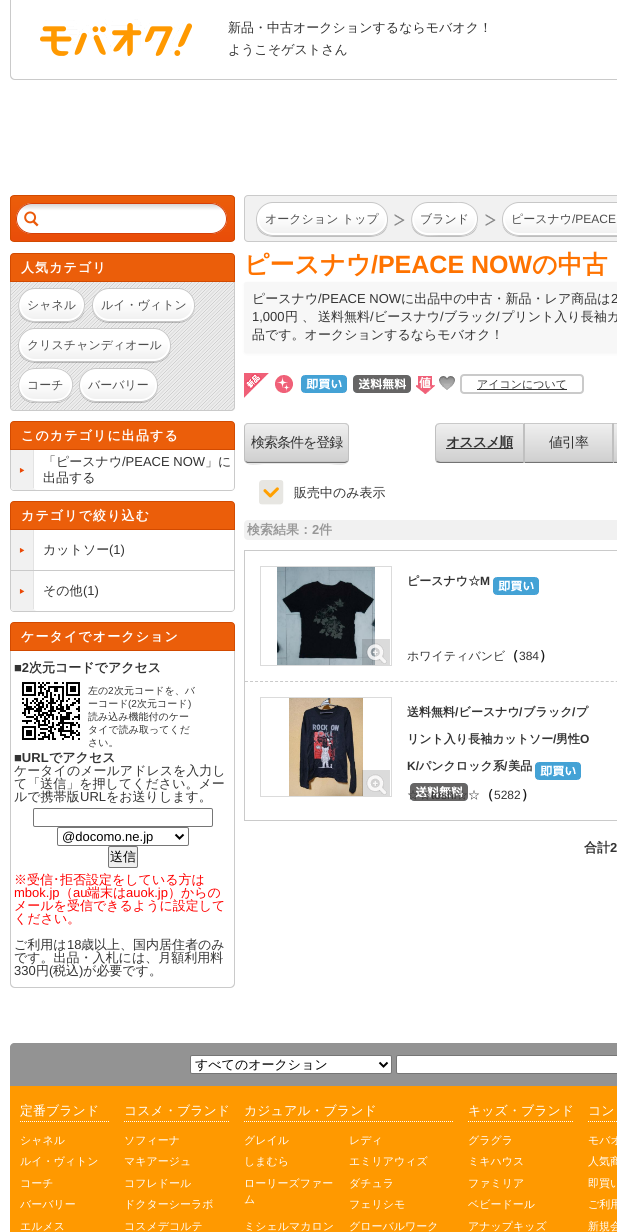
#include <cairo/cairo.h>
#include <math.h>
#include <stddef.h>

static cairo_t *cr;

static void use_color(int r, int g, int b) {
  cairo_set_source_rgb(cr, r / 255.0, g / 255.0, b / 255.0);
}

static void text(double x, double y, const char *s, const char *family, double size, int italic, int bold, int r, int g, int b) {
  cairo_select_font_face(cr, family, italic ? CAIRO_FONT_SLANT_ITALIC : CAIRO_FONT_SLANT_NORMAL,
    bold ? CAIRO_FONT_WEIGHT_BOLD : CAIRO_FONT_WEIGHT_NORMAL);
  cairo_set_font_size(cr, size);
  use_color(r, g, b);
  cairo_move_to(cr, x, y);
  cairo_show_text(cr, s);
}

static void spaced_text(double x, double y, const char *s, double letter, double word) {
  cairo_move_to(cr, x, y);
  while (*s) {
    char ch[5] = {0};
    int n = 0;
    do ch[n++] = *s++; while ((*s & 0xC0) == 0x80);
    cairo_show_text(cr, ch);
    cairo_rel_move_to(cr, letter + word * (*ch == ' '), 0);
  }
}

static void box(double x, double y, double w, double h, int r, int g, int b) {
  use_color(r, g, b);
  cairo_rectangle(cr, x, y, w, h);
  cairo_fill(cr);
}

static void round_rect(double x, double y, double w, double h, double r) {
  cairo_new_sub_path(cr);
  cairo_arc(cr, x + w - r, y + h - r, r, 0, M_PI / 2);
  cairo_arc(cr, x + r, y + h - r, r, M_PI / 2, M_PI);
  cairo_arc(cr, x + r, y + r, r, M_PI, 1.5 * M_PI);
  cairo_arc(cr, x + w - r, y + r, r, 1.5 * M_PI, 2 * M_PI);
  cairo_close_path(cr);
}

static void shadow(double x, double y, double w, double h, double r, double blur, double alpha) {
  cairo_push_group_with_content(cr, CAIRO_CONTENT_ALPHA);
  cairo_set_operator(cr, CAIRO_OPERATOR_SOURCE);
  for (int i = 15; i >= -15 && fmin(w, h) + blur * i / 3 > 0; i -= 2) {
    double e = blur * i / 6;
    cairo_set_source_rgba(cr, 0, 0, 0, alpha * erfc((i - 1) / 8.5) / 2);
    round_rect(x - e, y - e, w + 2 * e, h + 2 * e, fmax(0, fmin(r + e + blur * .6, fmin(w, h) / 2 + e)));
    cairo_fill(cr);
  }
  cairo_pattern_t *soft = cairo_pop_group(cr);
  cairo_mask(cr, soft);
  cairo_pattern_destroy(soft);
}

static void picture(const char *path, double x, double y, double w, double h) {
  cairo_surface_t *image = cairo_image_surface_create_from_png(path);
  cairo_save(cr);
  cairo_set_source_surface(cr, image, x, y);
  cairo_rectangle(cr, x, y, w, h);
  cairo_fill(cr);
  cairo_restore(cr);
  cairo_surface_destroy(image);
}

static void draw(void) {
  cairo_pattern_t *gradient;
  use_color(255, 255, 255);
  cairo_paint(cr);
  use_color(202, 202, 202);
  cairo_set_fill_rule(cr, CAIRO_FILL_RULE_EVEN_ODD);
  cairo_new_path(cr);
  cairo_move_to(cr, 10, 0);
  cairo_line_to(cr, 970, 0);
  cairo_line_to(cr, 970, 75);
  cairo_curve_to(cr, 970, 78, 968, 80, 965, 80);
  cairo_line_to(cr, 15, 80);
  cairo_curve_to(cr, 12, 80, 10, 78, 10, 75);
  cairo_close_path(cr);
  cairo_move_to(cr, 11, 0);
  cairo_line_to(cr, 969, 0);
  cairo_line_to(cr, 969, 75);
  cairo_curve_to(cr, 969, 77, 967, 79, 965, 79);
  cairo_line_to(cr, 15, 79);
  cairo_curve_to(cr, 13, 79, 11, 77, 11, 75);
  cairo_close_path(cr);
  cairo_fill(cr);
  picture("img_01.png", 40, 19, 152, 37);
  cairo_save(cr);
  cairo_set_fill_rule(cr, CAIRO_FILL_RULE_WINDING);
  round_rect(10, 195, 225, 47, 4);
  cairo_clip(cr);
  gradient = cairo_pattern_create_linear(11, 196, 11, 241);
  cairo_pattern_add_color_stop_rgba(gradient, 0, 0.922, 0.369, 0.039, 1);
  cairo_pattern_add_color_stop_rgba(gradient, 1, 0.914, 0.298, 0.035, 1);
  cairo_set_source(cr, gradient);
  cairo_pattern_destroy(gradient);
  cairo_rectangle(cr, 10, 196, 225, 45);
  cairo_fill(cr);
  cairo_restore(cr);
  round_rect(10.5, 195.5, 224, 46, 3.5);
  use_color(210, 74, 0);
  cairo_set_line_width(cr, 1);
  cairo_stroke(cr);
  picture("img_02.png", 16, 203, 211, 31);
  cairo_new_path(cr);
  cairo_move_to(cr, 32, 203.5);
  cairo_line_to(cr, 211, 203.5);
  cairo_curve_to(cr, 219.5, 203.5, 226.5, 210.5, 226.5, 219);
  cairo_curve_to(cr, 226.5, 227, 219.5, 233.5, 211, 233.5);
  cairo_line_to(cr, 32, 233.5);
  cairo_curve_to(cr, 23.5, 233.5, 16.5, 227, 16.5, 219);
  cairo_curve_to(cr, 16.5, 210.5, 23.5, 203.5, 32, 203.5);
  cairo_close_path(cr);
  use_color(213, 63, 8);
  cairo_stroke(cr);
  use_color(235, 94, 10);
  cairo_new_path(cr);
  cairo_move_to(cr, 14, 253.5);
  cairo_line_to(cr, 231, 253.5);
  cairo_curve_to(cr, 233, 253.5, 234.5, 255, 234.5, 257);
  cairo_line_to(cr, 234.5, 281.5);
  cairo_line_to(cr, 10.5, 281.5);
  cairo_line_to(cr, 10.5, 257);
  cairo_curve_to(cr, 10.5, 255, 12, 253.5, 14, 253.5);
  cairo_close_path(cr);
  cairo_fill_preserve(cr);
  use_color(210, 74, 0);
  cairo_stroke(cr);
  picture("img_03.png", 10, 282, 225, 129);
  use_color(202, 202, 202);
  cairo_new_path(cr);
  cairo_move_to(cr, 10, 282);
  cairo_line_to(cr, 235, 282);
  cairo_line_to(cr, 235, 407);
  cairo_curve_to(cr, 235, 409, 233, 411, 231, 411);
  cairo_line_to(cr, 14, 411);
  cairo_curve_to(cr, 12, 411, 10, 409, 10, 407);
  cairo_close_path(cr);
  cairo_move_to(cr, 11, 282);
  cairo_line_to(cr, 234, 282);
  cairo_line_to(cr, 234, 407);
  cairo_curve_to(cr, 234, 409, 233, 410, 231, 410);
  cairo_line_to(cr, 14, 410);
  cairo_curve_to(cr, 12, 410, 11, 409, 11, 407);
  cairo_close_path(cr);
  cairo_fill(cr);
  cairo_set_source_rgba(cr, 0, 0, 0, 0.21);
  cairo_set_fill_rule(cr, CAIRO_FILL_RULE_WINDING);
  cairo_new_path(cr);
  cairo_move_to(cr, 18, 306);
  cairo_curve_to(cr, 18, 326, 38, 323, 52, 323);
  cairo_curve_to(cr, 65, 323, 85, 326, 85, 306);
  cairo_curve_to(cr, 85, 315, 77, 322, 68, 322);
  cairo_line_to(cr, 35, 322);
  cairo_curve_to(cr, 26, 322, 18, 315, 18, 306);
  cairo_close_path(cr);
  cairo_fill(cr);
  gradient = cairo_pattern_create_linear(52, 321, 52, 289);
  cairo_pattern_add_color_stop_rgba(gradient, 0, 0.937, 0.937, 0.937, 1);
  cairo_pattern_add_color_stop_rgba(gradient, 0.6, 1, 1, 1, 1);
  cairo_set_source(cr, gradient);
  cairo_pattern_destroy(gradient);
  cairo_new_path(cr);
  cairo_move_to(cr, 18, 305);
  cairo_line_to(cr, 18, 306);
  cairo_curve_to(cr, 18, 313, 23, 319, 29, 321);
  cairo_line_to(cr, 74, 321);
  cairo_curve_to(cr, 80, 319, 85, 313, 85, 306);
  cairo_line_to(cr, 85, 305);
  cairo_curve_to(cr, 85, 298, 80, 291, 74, 289);
  cairo_line_to(cr, 29, 289);
  cairo_curve_to(cr, 23, 291, 18, 298, 18, 305);
  cairo_close_path(cr);
  cairo_fill(cr);
  cairo_new_path(cr);
  cairo_move_to(cr, 35, 290);
  cairo_line_to(cr, 68, 290);
  cairo_curve_to(cr, 76.5, 290, 83, 296.5, 83, 305);
  cairo_line_to(cr, 83, 306);
  cairo_curve_to(cr, 83, 313.5, 76.5, 320, 68, 320);
  cairo_line_to(cr, 35, 320);
  cairo_curve_to(cr, 26.5, 320, 20, 313.5, 20, 306);
  cairo_line_to(cr, 20, 305);
  cairo_curve_to(cr, 20, 296.5, 26.5, 290, 35, 290);
  cairo_close_path(cr);
  use_color(255, 255, 255);
  cairo_set_line_width(cr, 2);
  cairo_stroke(cr);
  cairo_new_path(cr);
  cairo_move_to(cr, 35, 288.5);
  cairo_line_to(cr, 57, 288.5);
  cairo_curve_to(cr, 62.5, 288.5, 69, 287.5, 74.5, 290);
  cairo_curve_to(cr, 91, 297, 86, 321, 68, 321.5);
  cairo_line_to(cr, 46, 321.5);
  cairo_curve_to(cr, 40.5, 321.5, 34, 322.5, 28.5, 320.5);
  cairo_curve_to(cr, 12, 313.5, 17.5, 288.5, 35, 288.5);
  cairo_close_path(cr);
  use_color(199, 199, 199);
  cairo_set_line_width(cr, 1);
  cairo_stroke(cr);
  cairo_set_source_rgba(cr, 0, 0, 0, 0.21);
  cairo_new_path(cr);
  cairo_move_to(cr, 92, 306);
  cairo_line_to(cr, 92, 307);
  cairo_curve_to(cr, 92, 316, 100, 323, 109, 323);
  cairo_line_to(cr, 178, 323);
  cairo_curve_to(cr, 187, 323, 195, 316, 195, 307);
  cairo_line_to(cr, 195, 306);
  cairo_curve_to(cr, 195, 315, 187, 322, 178, 322);
  cairo_line_to(cr, 109, 322);
  cairo_curve_to(cr, 100, 322, 92, 315, 92, 306);
  cairo_close_path(cr);
  cairo_fill(cr);
  gradient = cairo_pattern_create_linear(144, 321, 144, 289);
  cairo_pattern_add_color_stop_rgba(gradient, 0, 0.937, 0.937, 0.937, 1);
  cairo_pattern_add_color_stop_rgba(gradient, 0.6, 1, 1, 1, 1);
  cairo_set_source(cr, gradient);
  cairo_pattern_destroy(gradient);
  cairo_new_path(cr);
  cairo_move_to(cr, 92, 305);
  cairo_line_to(cr, 92, 306);
  cairo_curve_to(cr, 92, 313, 97, 319, 103, 321);
  cairo_line_to(cr, 184, 321);
  cairo_curve_to(cr, 190, 319, 195, 313, 195, 306);
  cairo_line_to(cr, 195, 305);
  cairo_curve_to(cr, 195, 298, 190, 291, 184, 289);
  cairo_line_to(cr, 103, 289);
  cairo_curve_to(cr, 97, 291, 92, 298, 92, 305);
  cairo_close_path(cr);
  cairo_fill(cr);
  cairo_new_path(cr);
  cairo_move_to(cr, 109, 290);
  cairo_line_to(cr, 178, 290);
  cairo_curve_to(cr, 186.5, 290, 193, 296.5, 193, 305);
  cairo_line_to(cr, 193, 306);
  cairo_curve_to(cr, 193, 313.5, 186.5, 320, 178, 320);
  cairo_line_to(cr, 109, 320);
  cairo_curve_to(cr, 100.5, 320, 94, 313.5, 94, 306);
  cairo_line_to(cr, 94, 305);
  cairo_curve_to(cr, 94, 296.5, 100.5, 290, 109, 290);
  cairo_close_path(cr);
  use_color(255, 255, 255);
  cairo_set_line_width(cr, 2);
  cairo_stroke(cr);
  cairo_new_path(cr);
  cairo_move_to(cr, 109, 288.5);
  cairo_line_to(cr, 178, 288.5);
  cairo_curve_to(cr, 187, 288.5, 194.5, 296, 194.5, 305);
  cairo_line_to(cr, 194.5, 306);
  cairo_curve_to(cr, 194.5, 314.5, 187, 321.5, 178, 321.5);
  cairo_line_to(cr, 109, 321.5);
  cairo_curve_to(cr, 100, 321.5, 92.5, 314.5, 92.5, 306);
  cairo_line_to(cr, 92.5, 305);
  cairo_curve_to(cr, 92.5, 296, 100, 288.5, 109, 288.5);
  cairo_close_path(cr);
  use_color(199, 199, 199);
  cairo_set_line_width(cr, 1);
  cairo_stroke(cr);
  cairo_set_source_rgba(cr, 0, 0, 0, 0.21);
  cairo_new_path(cr);
  cairo_move_to(cr, 18, 346);
  cairo_curve_to(cr, 18, 367, 41, 363, 55, 363);
  cairo_line_to(cr, 134, 363);
  cairo_curve_to(cr, 148, 363, 171, 367, 171, 346);
  cairo_curve_to(cr, 171, 355, 163, 362, 154, 362);
  cairo_line_to(cr, 35, 362);
  cairo_curve_to(cr, 26, 362, 18, 355, 18, 346);
  cairo_close_path(cr);
  cairo_fill(cr);
  gradient = cairo_pattern_create_linear(95, 361, 95, 329);
  cairo_pattern_add_color_stop_rgba(gradient, 0, 0.937, 0.937, 0.937, 1);
  cairo_pattern_add_color_stop_rgba(gradient, 0.6, 1, 1, 1, 1);
  cairo_set_source(cr, gradient);
  cairo_pattern_destroy(gradient);
  cairo_new_path(cr);
  cairo_move_to(cr, 18, 345);
  cairo_line_to(cr, 18, 346);
  cairo_curve_to(cr, 18, 353, 23, 359, 29, 361);
  cairo_line_to(cr, 160, 361);
  cairo_curve_to(cr, 166, 359, 171, 353, 171, 346);
  cairo_line_to(cr, 171, 345);
  cairo_curve_to(cr, 171, 338, 166, 331, 160, 329);
  cairo_line_to(cr, 29, 329);
  cairo_curve_to(cr, 23, 331, 18, 338, 18, 345);
  cairo_close_path(cr);
  cairo_fill(cr);
  cairo_new_path(cr);
  cairo_move_to(cr, 35, 330);
  cairo_line_to(cr, 154, 330);
  cairo_curve_to(cr, 162.5, 330, 169, 336.5, 169, 345);
  cairo_line_to(cr, 169, 346);
  cairo_curve_to(cr, 169, 353.5, 162.5, 360, 154, 360);
  cairo_line_to(cr, 35, 360);
  cairo_curve_to(cr, 26.5, 360, 20, 353.5, 20, 346);
  cairo_line_to(cr, 20, 345);
  cairo_curve_to(cr, 20, 336.5, 26.5, 330, 35, 330);
  cairo_close_path(cr);
  use_color(255, 255, 255);
  cairo_set_line_width(cr, 2);
  cairo_stroke(cr);
  cairo_new_path(cr);
  cairo_move_to(cr, 35, 328.5);
  cairo_line_to(cr, 154, 328.5);
  cairo_curve_to(cr, 163, 328.5, 170.5, 336, 170.5, 345);
  cairo_line_to(cr, 170.5, 346);
  cairo_curve_to(cr, 170.5, 354.5, 163, 361.5, 154, 361.5);
  cairo_line_to(cr, 35, 361.5);
  cairo_curve_to(cr, 26, 361.5, 18.5, 354.5, 18.5, 346);
  cairo_line_to(cr, 18.5, 345);
  cairo_curve_to(cr, 18.5, 336, 26, 328.5, 35, 328.5);
  cairo_close_path(cr);
  use_color(199, 199, 199);
  cairo_set_line_width(cr, 1);
  cairo_stroke(cr);
  cairo_set_source_rgba(cr, 0, 0, 0, 0.21);
  cairo_new_path(cr);
  cairo_move_to(cr, 18, 387);
  cairo_curve_to(cr, 18, 394, 22, 401, 32, 403);
  cairo_line_to(cr, 59, 403);
  cairo_line_to(cr, 66, 400);
  cairo_curve_to(cr, 71, 397, 73, 391, 73, 385);
  cairo_line_to(cr, 73, 386);
  cairo_curve_to(cr, 73, 395, 65, 402, 56, 402);
  cairo_line_to(cr, 35, 402);
  cairo_curve_to(cr, 26, 402, 18, 395, 18, 387);
  cairo_close_path(cr);
  cairo_fill(cr);
  use_color(255, 255, 255);
  cairo_new_path(cr);
  cairo_move_to(cr, 35, 368);
  cairo_line_to(cr, 59, 368);
  cairo_curve_to(cr, 74, 371, 78, 391, 66, 399);
  cairo_line_to(cr, 59, 402);
  cairo_line_to(cr, 32, 402);
  cairo_curve_to(cr, 11, 398, 15, 368, 35, 368);
  cairo_close_path(cr);
  cairo_fill(cr);
  gradient = cairo_pattern_create_linear(46, 401, 46, 369);
  cairo_pattern_add_color_stop_rgba(gradient, 0, 0.937, 0.937, 0.937, 1);
  cairo_pattern_add_color_stop_rgba(gradient, 0.6, 1, 1, 1, 1);
  cairo_set_source(cr, gradient);
  cairo_pattern_destroy(gradient);
  cairo_new_path(cr);
  cairo_move_to(cr, 18, 385);
  cairo_line_to(cr, 18, 386);
  cairo_curve_to(cr, 18, 393, 23, 399, 29, 401);
  cairo_line_to(cr, 62, 401);
  cairo_curve_to(cr, 68, 399, 73, 393, 73, 386);
  cairo_line_to(cr, 73, 385);
  cairo_curve_to(cr, 73, 378, 68, 371, 62, 369);
  cairo_line_to(cr, 29, 369);
  cairo_curve_to(cr, 23, 371, 18, 378, 18, 385);
  cairo_close_path(cr);
  cairo_fill(cr);
  gradient = cairo_pattern_create_linear(46, 433, 46, 401);
  cairo_pattern_add_color_stop_rgba(gradient, 0, 0.937, 0.937, 0.937, 1);
  cairo_pattern_add_color_stop_rgba(gradient, 0.6, 1, 1, 1, 1);
  cairo_set_source(cr, gradient);
  cairo_pattern_destroy(gradient);
  cairo_new_path(cr);
  cairo_move_to(cr, 62, 401);
  cairo_curve_to(cr, 57, 403, 51, 402, 45.5, 402);
  cairo_curve_to(cr, 40, 402, 34, 403, 29, 401);
  cairo_close_path(cr);
  cairo_fill(cr);
  cairo_new_path(cr);
  cairo_move_to(cr, 35, 370);
  cairo_curve_to(cr, 42, 370, 56, 368.5, 62, 371);
  cairo_curve_to(cr, 74, 376, 74, 394, 62, 399);
  cairo_curve_to(cr, 56, 401, 45, 400, 38.5, 400);
  cairo_curve_to(cr, 35.5, 400, 32, 400, 29, 399);
  cairo_curve_to(cr, 14, 393, 19, 370, 35, 370);
  cairo_close_path(cr);
  use_color(255, 255, 255);
  cairo_set_line_width(cr, 2);
  cairo_stroke(cr);
  cairo_new_path(cr);
  cairo_move_to(cr, 35, 368.5);
  cairo_curve_to(cr, 42, 368.5, 56.5, 367, 62.5, 370);
  cairo_curve_to(cr, 79, 377, 74.5, 400.5, 56, 401.5);
  cairo_curve_to(cr, 49.5, 402, 34, 402.5, 28.5, 400.5);
  cairo_curve_to(cr, 12, 393.5, 17.5, 368.5, 35, 368.5);
  cairo_close_path(cr);
  use_color(199, 199, 199);
  cairo_set_line_width(cr, 1);
  cairo_stroke(cr);
  cairo_set_source_rgba(cr, 0, 0, 0, 0.21);
  cairo_new_path(cr);
  cairo_move_to(cr, 79, 386);
  cairo_line_to(cr, 79, 387);
  cairo_curve_to(cr, 79, 396, 87, 403, 96, 403);
  cairo_line_to(cr, 141, 403);
  cairo_curve_to(cr, 150, 403, 158, 396, 158, 387);
  cairo_line_to(cr, 158, 386);
  cairo_curve_to(cr, 158, 395, 150, 402, 141, 402);
  cairo_line_to(cr, 96, 402);
  cairo_curve_to(cr, 87, 402, 79, 395, 79, 386);
  cairo_close_path(cr);
  cairo_fill(cr);
  gradient = cairo_pattern_create_linear(119, 401, 119, 369);
  cairo_pattern_add_color_stop_rgba(gradient, 0, 0.937, 0.937, 0.937, 1);
  cairo_pattern_add_color_stop_rgba(gradient, 0.6, 1, 1, 1, 1);
  cairo_set_source(cr, gradient);
  cairo_pattern_destroy(gradient);
  cairo_new_path(cr);
  cairo_move_to(cr, 79, 385);
  cairo_line_to(cr, 79, 386);
  cairo_curve_to(cr, 79, 393, 84, 399, 90, 401);
  cairo_line_to(cr, 147, 401);
  cairo_curve_to(cr, 153, 399, 158, 393, 158, 386);
  cairo_line_to(cr, 158, 385);
  cairo_curve_to(cr, 158, 378, 153, 371, 147, 369);
  cairo_line_to(cr, 90, 369);
  cairo_curve_to(cr, 84, 371, 79, 378, 79, 385);
  cairo_close_path(cr);
  cairo_fill(cr);
  cairo_new_path(cr);
  cairo_move_to(cr, 96, 370);
  cairo_line_to(cr, 141, 370);
  cairo_curve_to(cr, 149.5, 370, 156, 376.5, 156, 385);
  cairo_line_to(cr, 156, 386);
  cairo_curve_to(cr, 156, 393.5, 149.5, 400, 141, 400);
  cairo_line_to(cr, 96, 400);
  cairo_curve_to(cr, 87.5, 400, 81, 393.5, 81, 386);
  cairo_line_to(cr, 81, 385);
  cairo_curve_to(cr, 81, 376.5, 87.5, 370, 96, 370);
  cairo_close_path(cr);
  use_color(255, 255, 255);
  cairo_set_line_width(cr, 2);
  cairo_stroke(cr);
  cairo_new_path(cr);
  cairo_move_to(cr, 96, 368.5);
  cairo_line_to(cr, 141, 368.5);
  cairo_curve_to(cr, 150, 368.5, 157.5, 376, 157.5, 385);
  cairo_line_to(cr, 157.5, 386);
  cairo_curve_to(cr, 157.5, 394.5, 150, 401.5, 141, 401.5);
  cairo_line_to(cr, 96, 401.5);
  cairo_curve_to(cr, 87, 401.5, 79.5, 394.5, 79.5, 386);
  cairo_line_to(cr, 79.5, 385);
  cairo_curve_to(cr, 79.5, 376, 87, 368.5, 96, 368.5);
  cairo_close_path(cr);
  use_color(199, 199, 199);
  cairo_set_line_width(cr, 1);
  cairo_stroke(cr);
  use_color(235, 94, 10);
  cairo_new_path(cr);
  cairo_move_to(cr, 14, 421.5);
  cairo_line_to(cr, 231, 421.5);
  cairo_curve_to(cr, 233, 421.5, 234.5, 423, 234.5, 425);
  cairo_line_to(cr, 234.5, 449.5);
  cairo_line_to(cr, 10.5, 449.5);
  cairo_line_to(cr, 10.5, 425);
  cairo_curve_to(cr, 10.5, 423, 12, 421.5, 14, 421.5);
  cairo_close_path(cr);
  cairo_fill_preserve(cr);
  use_color(210, 74, 0);
  cairo_stroke(cr);
  use_color(202, 202, 202);
  cairo_set_fill_rule(cr, CAIRO_FILL_RULE_EVEN_ODD);
  cairo_new_path(cr);
  cairo_move_to(cr, 10, 450);
  cairo_line_to(cr, 235, 450);
  cairo_line_to(cr, 235, 487);
  cairo_curve_to(cr, 235, 489, 233, 491, 231, 491);
  cairo_line_to(cr, 14, 491);
  cairo_curve_to(cr, 12, 491, 10, 489, 10, 487);
  cairo_close_path(cr);
  cairo_move_to(cr, 11, 450);
  cairo_line_to(cr, 234, 450);
  cairo_line_to(cr, 234, 487);
  cairo_curve_to(cr, 234, 489, 233, 490, 231, 490);
  cairo_line_to(cr, 14, 490);
  cairo_curve_to(cr, 12, 490, 11, 489, 11, 487);
  cairo_close_path(cr);
  cairo_fill(cr);
  cairo_save(cr);
  cairo_set_fill_rule(cr, CAIRO_FILL_RULE_WINDING);
  cairo_new_path(cr);
  cairo_move_to(cr, 11, 450);
  cairo_line_to(cr, 234, 450);
  cairo_line_to(cr, 234, 487);
  cairo_curve_to(cr, 234, 488.5, 232.5, 490, 231, 490);
  cairo_line_to(cr, 14, 490);
  cairo_curve_to(cr, 12.5, 490, 11, 488.5, 11, 487);
  cairo_close_path(cr);
  cairo_clip(cr);
  use_color(241, 241, 241);
  cairo_new_path(cr);
  cairo_move_to(cr, 11, 450);
  cairo_line_to(cr, 234, 450);
  cairo_line_to(cr, 234, 486);
  cairo_curve_to(cr, 234, 488, 232, 490, 230, 490);
  cairo_line_to(cr, 15, 490);
  cairo_curve_to(cr, 13, 490, 11, 488, 11, 486);
  cairo_close_path(cr);
  cairo_fill(cr);
  cairo_restore(cr);
  picture("img_04.png", 19, 468, 6, 5);
  use_color(255, 255, 255);
  cairo_new_path(cr);
  cairo_move_to(cr, 33, 450);
  cairo_line_to(cr, 234, 450);
  cairo_line_to(cr, 234, 486);
  cairo_curve_to(cr, 234, 488, 232, 490, 230, 490);
  cairo_line_to(cr, 37, 490);
  cairo_curve_to(cr, 35, 490, 33, 488, 33, 486);
  cairo_close_path(cr);
  cairo_fill(cr);
  box(33, 450, 1, 38, 227, 227, 227);
  use_color(235, 94, 10);
  cairo_new_path(cr);
  cairo_move_to(cr, 14, 501.5);
  cairo_line_to(cr, 231, 501.5);
  cairo_curve_to(cr, 233, 501.5, 234.5, 503, 234.5, 505);
  cairo_line_to(cr, 234.5, 529.5);
  cairo_line_to(cr, 10.5, 529.5);
  cairo_line_to(cr, 10.5, 505);
  cairo_curve_to(cr, 10.5, 503, 12, 501.5, 14, 501.5);
  cairo_close_path(cr);
  cairo_fill_preserve(cr);
  use_color(210, 74, 0);
  cairo_stroke(cr);
  box(234, 530, 1, 41, 202, 202, 202);
  box(10, 570, 225, 1, 202, 202, 202);
  box(10, 530, 1, 41, 202, 202, 202);
  box(11, 530, 22, 40, 241, 241, 241);
  picture("img_04.png", 19, 548, 6, 5);
  box(33, 530, 1, 40, 227, 227, 227);
  use_color(202, 202, 202);
  cairo_new_path(cr);
  cairo_move_to(cr, 10, 571);
  cairo_line_to(cr, 235, 571);
  cairo_line_to(cr, 235, 608);
  cairo_curve_to(cr, 235, 610, 233, 612, 231, 612);
  cairo_line_to(cr, 14, 612);
  cairo_curve_to(cr, 12, 612, 10, 610, 10, 608);
  cairo_close_path(cr);
  cairo_move_to(cr, 11, 571);
  cairo_line_to(cr, 234, 571);
  cairo_line_to(cr, 234, 608);
  cairo_curve_to(cr, 234, 610, 233, 611, 231, 611);
  cairo_line_to(cr, 14, 611);
  cairo_curve_to(cr, 12, 611, 11, 610, 11, 608);
  cairo_close_path(cr);
  cairo_fill(cr);
  use_color(241, 241, 241);
  cairo_new_path(cr);
  cairo_move_to(cr, 11, 571);
  cairo_line_to(cr, 234, 571);
  cairo_line_to(cr, 234, 608);
  cairo_curve_to(cr, 234, 609.5, 232.5, 611, 231, 611);
  cairo_line_to(cr, 14, 611);
  cairo_curve_to(cr, 12.5, 611, 11, 609.5, 11, 608);
  cairo_close_path(cr);
  cairo_fill(cr);
  picture("img_04.png", 19, 589, 6, 5);
  use_color(255, 255, 255);
  cairo_new_path(cr);
  cairo_move_to(cr, 33, 571);
  cairo_line_to(cr, 234, 571);
  cairo_line_to(cr, 234, 607);
  cairo_curve_to(cr, 234, 609, 232, 611, 230, 611);
  cairo_line_to(cr, 37, 611);
  cairo_curve_to(cr, 35, 611, 33, 609, 33, 607);
  cairo_close_path(cr);
  cairo_fill(cr);
  box(33, 571, 1, 38, 227, 227, 227);
  use_color(235, 94, 10);
  cairo_new_path(cr);
  cairo_move_to(cr, 14, 622.5);
  cairo_line_to(cr, 231, 622.5);
  cairo_curve_to(cr, 233, 622.5, 234.5, 624, 234.5, 626);
  cairo_line_to(cr, 234.5, 650.5);
  cairo_line_to(cr, 10.5, 650.5);
  cairo_line_to(cr, 10.5, 626);
  cairo_curve_to(cr, 10.5, 624, 12, 622.5, 14, 622.5);
  cairo_close_path(cr);
  cairo_fill_preserve(cr);
  use_color(210, 74, 0);
  cairo_stroke(cr);
  use_color(202, 202, 202);
  cairo_new_path(cr);
  cairo_move_to(cr, 10, 651);
  cairo_line_to(cr, 235, 651);
  cairo_line_to(cr, 235, 983);
  cairo_curve_to(cr, 235, 986, 233, 988, 230, 988);
  cairo_line_to(cr, 15, 988);
  cairo_curve_to(cr, 12, 988, 10, 986, 10, 983);
  cairo_close_path(cr);
  cairo_move_to(cr, 11, 651);
  cairo_line_to(cr, 234, 651);
  cairo_line_to(cr, 234, 983);
  cairo_curve_to(cr, 234, 985, 232, 987, 230, 987);
  cairo_line_to(cr, 15, 987);
  cairo_curve_to(cr, 13, 987, 11, 985, 11, 983);
  cairo_close_path(cr);
  cairo_fill(cr);
  picture("img_05.png", 22, 682, 58, 58);
  round_rect(33.5, 808.5, 179, 18, 1.5);
  use_color(118, 118, 118);
  cairo_stroke(cr);
  round_rect(57.5, 827.5, 131, 18, 1.5);
  cairo_stroke(cr);
  cairo_new_path(cr);
  cairo_move_to(cr, 175.5, 834.5);
  cairo_line_to(cr, 179.5, 838.5);
  cairo_line_to(cr, 183.5, 834.5);
  use_color(0, 0, 0);
  cairo_set_line_width(cr, 2);
  cairo_stroke(cr);
  use_color(239, 239, 239);
  round_rect(108.5, 846.5, 29, 21, 1.5);
  cairo_fill_preserve(cr);
  use_color(118, 118, 118);
  cairo_set_line_width(cr, 1);
  cairo_stroke(cr);
  use_color(241, 241, 241);
  round_rect(244.5, 195.5, 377, 46, 3.5);
  cairo_fill_preserve(cr);
  use_color(202, 202, 202);
  cairo_stroke(cr);
  cairo_save(cr);
  cairo_set_fill_rule(cr, CAIRO_FILL_RULE_WINDING);
  cairo_rectangle(cr, 256, 202, 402, 35);
  cairo_clip(cr);
  use_color(190, 190, 190);
  cairo_new_path(cr);
  cairo_move_to(cr, 256, 220);
  cairo_curve_to(cr, 256, 240, 276, 237, 289, 237);
  cairo_line_to(cr, 355, 237);
  cairo_curve_to(cr, 368, 237, 388, 240, 388, 220);
  cairo_curve_to(cr, 388, 229, 380, 236, 371, 236);
  cairo_line_to(cr, 273, 236);
  cairo_curve_to(cr, 264, 236, 256, 229, 256, 220);
  cairo_close_path(cr);
  cairo_fill(cr);
  cairo_restore(cr);
  gradient = cairo_pattern_create_linear(322, 235, 322, 203);
  cairo_pattern_add_color_stop_rgba(gradient, 0, 0.937, 0.937, 0.937, 1);
  cairo_pattern_add_color_stop_rgba(gradient, 0.6, 1, 1, 1, 1);
  cairo_set_source(cr, gradient);
  cairo_pattern_destroy(gradient);
  cairo_set_fill_rule(cr, CAIRO_FILL_RULE_WINDING);
  cairo_new_path(cr);
  cairo_move_to(cr, 256, 219);
  cairo_line_to(cr, 256, 220);
  cairo_curve_to(cr, 256, 227, 261, 233, 267, 235);
  cairo_line_to(cr, 377, 235);
  cairo_curve_to(cr, 383, 233, 388, 227, 388, 220);
  cairo_line_to(cr, 388, 219);
  cairo_curve_to(cr, 388, 212, 383, 205, 377, 203);
  cairo_line_to(cr, 267, 203);
  cairo_curve_to(cr, 261, 205, 256, 212, 256, 219);
  cairo_close_path(cr);
  cairo_fill(cr);
  cairo_new_path(cr);
  cairo_move_to(cr, 273, 204);
  cairo_line_to(cr, 371, 204);
  cairo_curve_to(cr, 379.5, 204, 386, 210.5, 386, 219);
  cairo_line_to(cr, 386, 220);
  cairo_curve_to(cr, 386, 227.5, 379.5, 234, 371, 234);
  cairo_line_to(cr, 273, 234);
  cairo_curve_to(cr, 264.5, 234, 258, 227.5, 258, 220);
  cairo_line_to(cr, 258, 219);
  cairo_curve_to(cr, 258, 210.5, 264.5, 204, 273, 204);
  cairo_close_path(cr);
  use_color(255, 255, 255);
  cairo_set_line_width(cr, 2);
  cairo_stroke(cr);
  cairo_new_path(cr);
  cairo_move_to(cr, 273, 202.5);
  cairo_line_to(cr, 371, 202.5);
  cairo_curve_to(cr, 380, 202.5, 387.5, 210, 387.5, 219);
  cairo_line_to(cr, 387.5, 220);
  cairo_curve_to(cr, 387.5, 228.5, 380, 235.5, 371, 235.5);
  cairo_line_to(cr, 273, 235.5);
  cairo_curve_to(cr, 264, 235.5, 256.5, 228.5, 256.5, 220);
  cairo_line_to(cr, 256.5, 219);
  cairo_curve_to(cr, 256.5, 210, 264, 202.5, 273, 202.5);
  cairo_close_path(cr);
  use_color(199, 199, 199);
  cairo_set_line_width(cr, 1);
  cairo_stroke(cr);
  picture("img_06.png", 394, 214, 11, 12);
  cairo_save(cr);
  cairo_rectangle(cr, 256, 202, 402, 35);
  cairo_clip(cr);
  use_color(190, 190, 190);
  cairo_new_path(cr);
  cairo_move_to(cr, 411, 220);
  cairo_curve_to(cr, 411, 240, 431, 237, 444, 237);
  cairo_curve_to(cr, 458, 237, 478, 240, 478, 220);
  cairo_curve_to(cr, 478, 229, 470, 236, 461, 236);
  cairo_line_to(cr, 428, 236);
  cairo_curve_to(cr, 419, 236, 411, 229, 411, 220);
  cairo_close_path(cr);
  cairo_fill(cr);
  cairo_restore(cr);
  gradient = cairo_pattern_create_linear(445, 235, 445, 203);
  cairo_pattern_add_color_stop_rgba(gradient, 0, 0.937, 0.937, 0.937, 1);
  cairo_pattern_add_color_stop_rgba(gradient, 0.6, 1, 1, 1, 1);
  cairo_set_source(cr, gradient);
  cairo_pattern_destroy(gradient);
  cairo_new_path(cr);
  cairo_move_to(cr, 411, 219);
  cairo_line_to(cr, 411, 220);
  cairo_curve_to(cr, 411, 227, 416, 233, 422, 235);
  cairo_line_to(cr, 467, 235);
  cairo_curve_to(cr, 473, 233, 478, 227, 478, 220);
  cairo_line_to(cr, 478, 219);
  cairo_curve_to(cr, 478, 212, 473, 205, 467, 203);
  cairo_line_to(cr, 422, 203);
  cairo_curve_to(cr, 416, 205, 411, 212, 411, 219);
  cairo_close_path(cr);
  cairo_fill(cr);
  cairo_new_path(cr);
  cairo_move_to(cr, 428, 204);
  cairo_line_to(cr, 461, 204);
  cairo_curve_to(cr, 469.5, 204, 476, 210.5, 476, 219);
  cairo_line_to(cr, 476, 220);
  cairo_curve_to(cr, 476, 227.5, 469.5, 234, 461, 234);
  cairo_line_to(cr, 428, 234);
  cairo_curve_to(cr, 419.5, 234, 413, 227.5, 413, 220);
  cairo_line_to(cr, 413, 219);
  cairo_curve_to(cr, 413, 210.5, 419.5, 204, 428, 204);
  cairo_close_path(cr);
  use_color(255, 255, 255);
  cairo_set_line_width(cr, 2);
  cairo_stroke(cr);
  cairo_save(cr);
  cairo_rectangle(cr, 256, 202, 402, 35);
  cairo_clip(cr);
  cairo_new_path(cr);
  cairo_move_to(cr, 428, 202.5);
  cairo_line_to(cr, 450, 202.5);
  cairo_curve_to(cr, 455.5, 202.5, 462, 201.5, 467.5, 204);
  cairo_curve_to(cr, 484, 211, 479, 235, 461, 235.5);
  cairo_line_to(cr, 439, 235.5);
  cairo_curve_to(cr, 433.5, 235.5, 427, 236.5, 421.5, 234.5);
  cairo_curve_to(cr, 405, 227.5, 410.5, 202.5, 428, 202.5);
  cairo_close_path(cr);
  use_color(199, 199, 199);
  cairo_set_line_width(cr, 1);
  cairo_stroke(cr);
  cairo_restore(cr);
  picture("img_06.png", 485, 214, 11, 12);
  cairo_save(cr);
  cairo_rectangle(cr, 256, 202, 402, 35);
  cairo_clip(cr);
  use_color(190, 190, 190);
  cairo_new_path(cr);
  cairo_move_to(cr, 502, 220);
  cairo_curve_to(cr, 502, 241, 526, 237, 539, 237);
  cairo_line_to(cr, 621, 237);
  cairo_curve_to(cr, 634, 237, 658, 241, 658, 220);
  cairo_curve_to(cr, 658, 229, 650, 236, 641, 236);
  cairo_line_to(cr, 519, 236);
  cairo_curve_to(cr, 510, 236, 502, 229, 502, 220);
  cairo_close_path(cr);
  cairo_fill(cr);
  cairo_restore(cr);
  gradient = cairo_pattern_create_linear(580, 235, 580, 203);
  cairo_pattern_add_color_stop_rgba(gradient, 0, 0.937, 0.937, 0.937, 1);
  cairo_pattern_add_color_stop_rgba(gradient, 0.6, 1, 1, 1, 1);
  cairo_set_source(cr, gradient);
  cairo_pattern_destroy(gradient);
  cairo_new_path(cr);
  cairo_move_to(cr, 502, 219);
  cairo_line_to(cr, 502, 220);
  cairo_curve_to(cr, 502, 227, 507, 233, 513, 235);
  cairo_line_to(cr, 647, 235);
  cairo_curve_to(cr, 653, 233, 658, 227, 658, 220);
  cairo_line_to(cr, 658, 219);
  cairo_curve_to(cr, 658, 212, 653, 205, 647, 203);
  cairo_line_to(cr, 513, 203);
  cairo_curve_to(cr, 507, 205, 502, 212, 502, 219);
  cairo_close_path(cr);
  cairo_fill(cr);
  cairo_new_path(cr);
  cairo_move_to(cr, 519, 204);
  cairo_line_to(cr, 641, 204);
  cairo_curve_to(cr, 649.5, 204, 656, 210.5, 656, 219);
  cairo_line_to(cr, 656, 220);
  cairo_curve_to(cr, 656, 227.5, 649.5, 234, 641, 234);
  cairo_line_to(cr, 519, 234);
  cairo_curve_to(cr, 510.5, 234, 504, 227.5, 504, 220);
  cairo_line_to(cr, 504, 219);
  cairo_curve_to(cr, 504, 210.5, 510.5, 204, 519, 204);
  cairo_close_path(cr);
  use_color(255, 255, 255);
  cairo_stroke(cr);
  cairo_new_path(cr);
  cairo_move_to(cr, 519, 202.5);
  cairo_line_to(cr, 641, 202.5);
  cairo_curve_to(cr, 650, 202.5, 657.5, 210, 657.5, 219);
  cairo_line_to(cr, 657.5, 220);
  cairo_curve_to(cr, 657.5, 228.5, 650, 235.5, 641, 235.5);
  cairo_line_to(cr, 519, 235.5);
  cairo_curve_to(cr, 510, 235.5, 502.5, 228.5, 502.5, 220);
  cairo_line_to(cr, 502.5, 219);
  cairo_curve_to(cr, 502.5, 210, 510, 202.5, 519, 202.5);
  cairo_close_path(cr);
  use_color(199, 199, 199);
  cairo_set_line_width(cr, 1);
  cairo_stroke(cr);
  use_color(0, 0, 0);
  shadow(244, 283, 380, 71, 2, 1.5, 0.04);
  use_color(247, 247, 247);
  round_rect(244, 282, 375, 71, 2);
  cairo_fill(cr);
  picture("img_07.png", 244, 373, 25, 25);
  picture("img_08.png", 275, 375, 18, 18);
  picture("img_09.png", 301, 375, 46, 18);
  picture("img_10.png", 353, 375, 58, 18);
  picture("img_11.png", 416, 376, 19, 18);
  picture("img_12.png", 439, 376, 16, 14);
  round_rect(461, 375, 122, 18, 3);
  use_color(202, 202, 202);
  cairo_set_line_width(cr, 2);
  cairo_stroke(cr);
  box(477, 389, 90, 1, 51, 51, 51);
  use_color(230, 230, 230);
  cairo_new_path(cr);
  cairo_move_to(cr, 244, 459);
  cairo_curve_to(cr, 244, 468, 260, 464, 264, 464);
  cairo_line_to(cr, 329, 464);
  cairo_curve_to(cr, 333, 464, 349, 468, 349, 459);
  cairo_curve_to(cr, 349, 461, 347, 463, 345, 463);
  cairo_line_to(cr, 248, 463);
  cairo_curve_to(cr, 246, 463, 244, 461, 244, 459);
  cairo_close_path(cr);
  cairo_fill(cr);
  cairo_save(cr);
  round_rect(244, 423, 105, 40, 4);
  cairo_clip(cr);
  gradient = cairo_pattern_create_linear(245, 386, 245, 424);
  cairo_pattern_add_color_stop_rgba(gradient, 0, 0.937, 0.937, 0.937, 1);
  cairo_pattern_add_color_stop_rgba(gradient, 1, 0.812, 0.812, 0.812, 1);
  cairo_set_source(cr, gradient);
  cairo_pattern_destroy(gradient);
  cairo_rectangle(cr, 244, 423, 105, 1);
  cairo_fill(cr);
  gradient = cairo_pattern_create_linear(245, 424, 245, 462);
  cairo_pattern_add_color_stop_rgba(gradient, 0, 0.937, 0.937, 0.937, 1);
  cairo_pattern_add_color_stop_rgba(gradient, 1, 0.812, 0.812, 0.812, 1);
  cairo_set_source(cr, gradient);
  cairo_pattern_destroy(gradient);
  cairo_rectangle(cr, 244, 424, 105, 38);
  cairo_fill(cr);
  gradient = cairo_pattern_create_linear(245, 462, 245, 500);
  cairo_pattern_add_color_stop_rgba(gradient, 0, 0.937, 0.937, 0.937, 1);
  cairo_pattern_add_color_stop_rgba(gradient, 1, 0.812, 0.812, 0.812, 1);
  cairo_set_source(cr, gradient);
  cairo_pattern_destroy(gradient);
  cairo_rectangle(cr, 244, 462, 105, 1);
  cairo_fill(cr);
  cairo_restore(cr);
  cairo_set_source_rgba(cr, 0, 0, 0, 0.05);
  cairo_new_path(cr);
  cairo_move_to(cr, 245, 458);
  cairo_curve_to(cr, 245, 466, 261, 462, 264, 462);
  cairo_line_to(cr, 329, 462);
  cairo_curve_to(cr, 332, 462, 348, 466, 348, 458);
  cairo_curve_to(cr, 348, 460, 347, 461, 345, 461);
  cairo_line_to(cr, 248, 461);
  cairo_curve_to(cr, 246, 461, 245, 460, 245, 458);
  cairo_close_path(cr);
  cairo_fill(cr);
  cairo_new_path(cr);
  cairo_move_to(cr, 245.5, 424.5);
  cairo_line_to(cr, 247.5, 423.5);
  cairo_line_to(cr, 329, 423.5);
  cairo_line_to(cr, 345, 423.5);
  cairo_line_to(cr, 347.5, 424.5);
  use_color(201, 201, 201);
  cairo_set_line_width(cr, 1);
  cairo_stroke(cr);
  cairo_new_path(cr);
  cairo_move_to(cr, 347.5, 424.5);
  cairo_curve_to(cr, 348, 425, 348.5, 426, 348.5, 427);
  cairo_line_to(cr, 348.5, 459);
  cairo_curve_to(cr, 348.5, 460, 348, 461, 347.5, 461.5);
  use_color(192, 192, 192);
  cairo_stroke(cr);
  cairo_new_path(cr);
  cairo_move_to(cr, 347.5, 461.5);
  cairo_line_to(cr, 345, 462.5);
  cairo_line_to(cr, 247.5, 462.5);
  cairo_line_to(cr, 245.5, 461.5);
  use_color(115, 115, 115);
  cairo_stroke(cr);
  cairo_new_path(cr);
  cairo_move_to(cr, 245.5, 461.5);
  cairo_curve_to(cr, 245, 461, 244.5, 460, 244.5, 459);
  cairo_line_to(cr, 244.5, 427);
  cairo_curve_to(cr, 244.5, 426, 245, 425, 245.5, 424.5);
  use_color(192, 192, 192);
  cairo_stroke(cr);
  cairo_save(cr);
  cairo_rectangle(cr, 435, 423, 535, 40);
  cairo_clip(cr);
  use_color(230, 230, 230);
  cairo_new_path(cr);
  cairo_move_to(cr, 435, 458);
  cairo_line_to(cr, 435, 459);
  cairo_curve_to(cr, 435, 462, 437, 464, 440, 464);
  cairo_line_to(cr, 524, 464);
  cairo_line_to(cr, 524, 463);
  cairo_line_to(cr, 440, 463);
  cairo_curve_to(cr, 437, 463, 435, 461, 435, 458);
  cairo_close_path(cr);
  cairo_fill(cr);
  cairo_restore(cr);
  cairo_save(cr);
  cairo_new_path(cr);
  cairo_move_to(cr, 440, 423);
  cairo_line_to(cr, 524, 423);
  cairo_line_to(cr, 524, 463);
  cairo_line_to(cr, 440, 463);
  cairo_curve_to(cr, 437, 463, 435, 461, 435, 458);
  cairo_line_to(cr, 435, 428);
  cairo_curve_to(cr, 435, 425, 437, 423, 440, 423);
  cairo_close_path(cr);
  cairo_clip(cr);
  gradient = cairo_pattern_create_linear(436, 424, 436, 462);
  cairo_pattern_add_color_stop_rgba(gradient, 0, 0.937, 0.937, 0.937, 1);
  cairo_pattern_add_color_stop_rgba(gradient, 1, 0.812, 0.812, 0.812, 1);
  cairo_set_source(cr, gradient);
  cairo_pattern_destroy(gradient);
  cairo_rectangle(cr, 435, 424, 88, 38);
  cairo_fill(cr);
  cairo_restore(cr);
  use_color(197, 197, 197);
  cairo_new_path(cr);
  cairo_move_to(cr, 436, 457);
  cairo_line_to(cr, 436, 458);
  cairo_curve_to(cr, 436, 460, 438, 462, 440, 462);
  cairo_line_to(cr, 523, 462);
  cairo_line_to(cr, 523, 461);
  cairo_line_to(cr, 440, 461);
  cairo_curve_to(cr, 438, 461, 436, 459, 436, 457);
  cairo_close_path(cr);
  cairo_fill(cr);
  use_color(201, 201, 201);
  cairo_new_path(cr);
  cairo_move_to(cr, 440, 423);
  cairo_curve_to(cr, 438, 423, 437, 424, 436, 424);
  cairo_line_to(cr, 437, 425);
  cairo_line_to(cr, 440, 424);
  cairo_line_to(cr, 523, 424);
  cairo_line_to(cr, 524, 423);
  cairo_close_path(cr);
  cairo_fill(cr);
  use_color(192, 192, 192);
  cairo_new_path(cr);
  cairo_move_to(cr, 524, 423);
  cairo_line_to(cr, 523, 424);
  cairo_line_to(cr, 523, 462);
  cairo_line_to(cr, 524, 463);
  cairo_close_path(cr);
  cairo_fill(cr);
  use_color(115, 115, 115);
  cairo_new_path(cr);
  cairo_move_to(cr, 524, 463);
  cairo_line_to(cr, 523, 462);
  cairo_line_to(cr, 440, 462);
  cairo_line_to(cr, 437, 461);
  cairo_line_to(cr, 436, 462);
  cairo_curve_to(cr, 437, 462, 438, 463, 440, 463);
  cairo_close_path(cr);
  cairo_fill(cr);
  use_color(192, 192, 192);
  cairo_new_path(cr);
  cairo_move_to(cr, 435, 428);
  cairo_line_to(cr, 435, 458);
  cairo_curve_to(cr, 435, 459.5, 435.5, 461, 436.5, 461.5);
  cairo_line_to(cr, 437, 461);
  cairo_curve_to(cr, 436.5, 460, 436, 459, 436, 458);
  cairo_line_to(cr, 436, 428);
  cairo_curve_to(cr, 436, 427, 436.5, 426, 437, 425);
  cairo_line_to(cr, 436.5, 424.5);
  cairo_curve_to(cr, 435.5, 425, 435, 426.5, 435, 428);
  cairo_close_path(cr);
  cairo_fill(cr);
  box(446, 448, 67, 1, 51, 51, 51);
  gradient = cairo_pattern_create_linear(525, 424, 525, 462);
  cairo_pattern_add_color_stop_rgba(gradient, 0, 0.937, 0.937, 0.937, 1);
  cairo_pattern_add_color_stop_rgba(gradient, 1, 0.812, 0.812, 0.812, 1);
  cairo_set_source(cr, gradient);
  cairo_pattern_destroy(gradient);
  cairo_rectangle(cr, 525, 424, 87, 37);
  cairo_fill(cr);
  box(525, 461, 87, 1, 197, 197, 197);
  box(524, 423, 93, 1, 201, 201, 201);
  box(612, 423, 1, 40, 192, 192, 192);
  box(524, 462, 93, 1, 115, 115, 115);
  box(524, 423, 1, 40, 192, 192, 192);
  gradient = cairo_pattern_create_linear(614, 424, 614, 462);
  cairo_pattern_add_color_stop_rgba(gradient, 0, 0.937, 0.937, 0.937, 1);
  cairo_pattern_add_color_stop_rgba(gradient, 1, 0.812, 0.812, 0.812, 1);
  cairo_set_source(cr, gradient);
  cairo_pattern_destroy(gradient);
  cairo_rectangle(cr, 614, 424, 3, 38);
  cairo_fill(cr);
  box(614, 461, 3, 1, 197, 197, 197);
  box(613, 423, 1, 40, 192, 192, 192);
  picture("img_13.png", 259, 480, 25, 25);
  use_color(241, 241, 241);
  round_rect(244, 520, 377, 20, 4);
  cairo_fill(cr);
  cairo_rectangle(cr, 244.5, 550.5, 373, 270);
  use_color(202, 202, 202);
  cairo_stroke(cr);
  cairo_rectangle(cr, 260.5, 566.5, 131, 99);
  use_color(219, 219, 219);
  cairo_stroke(cr);
  picture("img_14.png", 277, 567, 98, 98);
  picture("img_15.png", 362, 639, 28, 26);
  picture("img_09.png", 493, 577, 46, 18);
  cairo_new_path(cr);
  cairo_move_to(cr, 245, 681.5);
  cairo_line_to(cr, 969, 681.5);
  use_color(202, 202, 202);
  cairo_set_dash(cr, (double[]){3, 2.01}, 2, 0);
  cairo_stroke(cr);
  cairo_rectangle(cr, 260.5, 697.5, 131, 99);
  use_color(219, 219, 219);
  cairo_set_dash(cr, NULL, 0, 0);
  cairo_stroke(cr);
  picture("img_16.png", 289, 698, 74, 98);
  picture("img_17.png", 362, 770, 28, 26);
  picture("img_09.png", 535, 762, 46, 18);
  picture("img_10.png", 410, 783, 58, 18);
  use_color(147, 147, 147);
  cairo_new_path(cr);
  cairo_move_to(cr, 14, 1043);
  cairo_line_to(cr, 617, 1043);
  cairo_curve_to(cr, 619, 1043, 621, 1045, 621, 1047);
  cairo_line_to(cr, 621, 1086);
  cairo_line_to(cr, 10, 1086);
  cairo_line_to(cr, 10, 1047);
  cairo_curve_to(cr, 10, 1045, 12, 1043, 14, 1043);
  cairo_close_path(cr);
  cairo_fill(cr);
  use_color(255, 255, 255);
  round_rect(190.5, 1055.5, 201, 18, 1.5);
  cairo_fill_preserve(cr);
  use_color(118, 118, 118);
  cairo_stroke(cr);
  cairo_new_path(cr);
  cairo_move_to(cr, 379.5, 1062.5);
  cairo_line_to(cr, 383.5, 1066.5);
  cairo_line_to(cr, 387.5, 1062.5);
  use_color(0, 0, 0);
  cairo_set_line_width(cr, 2);
  cairo_stroke(cr);
  use_color(255, 255, 255);
  round_rect(396.5, 1055.5, 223, 18, 1.5);
  cairo_fill_preserve(cr);
  use_color(118, 118, 118);
  cairo_set_line_width(cr, 1);
  cairo_stroke(cr);
  box(10, 1086, 607, 146, 255, 153, 0);
  cairo_new_path(cr);
  cairo_move_to(cr, 20, 1121.5);
  cairo_line_to(cr, 110, 1121.5);
  use_color(255, 255, 255);
  cairo_set_dash(cr, (double[]){1, 1}, 2, 0);
  cairo_stroke(cr);
  cairo_new_path(cr);
  cairo_move_to(cr, 124, 1121.5);
  cairo_line_to(cr, 230, 1121.5);
  cairo_stroke(cr);
  cairo_new_path(cr);
  cairo_move_to(cr, 244, 1121.5);
  cairo_line_to(cr, 454, 1121.5);
  cairo_stroke(cr);
  cairo_new_path(cr);
  cairo_move_to(cr, 468, 1121.5);
  cairo_line_to(cr, 574, 1121.5);
  cairo_stroke(cr);
  cairo_new_path(cr);
  cairo_move_to(cr, 588, 1121.5);
  cairo_line_to(cr, 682, 1121.5);
  cairo_stroke(cr);
  text(228, 32, "新品・中古オークションするならモバオク！", "WenQuanYi Zen Hei Medium", 13, 0, 0, 51, 51, 51);
  text(228, 54, "ようこそゲストさん", "WenQuanYi Zen Hei Medium", 13, 0, 0, 51, 51, 51);
  cairo_select_font_face(cr, "WenQuanYi Zen Hei", CAIRO_FONT_SLANT_NORMAL, CAIRO_FONT_WEIGHT_BOLD);
  use_color(255, 255, 255);
  spaced_text(21, 272, "人気カテゴリ", 1.1, 0);
  text(27, 309, "シャネル", "WenQuanYi Zen Hei Medium", 12, 0, 0, 77, 77, 77);
  text(101, 309, "ルイ・ヴィトン", "WenQuanYi Zen Hei Medium", 12, 0, 0, 77, 77, 77);
  text(27, 349, "クリスチャンディオール", "WenQuanYi Zen Hei Medium", 12, 0, 0, 77, 77, 77);
  text(27, 389, "コーチ", "WenQuanYi Zen Hei Medium", 12, 0, 0, 77, 77, 77);
  text(88, 389, "バーバリー", "WenQuanYi Zen Hei Medium", 12, 0, 0, 77, 77, 77);
  cairo_select_font_face(cr, "WenQuanYi Zen Hei", CAIRO_FONT_SLANT_NORMAL, CAIRO_FONT_WEIGHT_BOLD);
  cairo_set_font_size(cr, 13);
  use_color(255, 255, 255);
  spaced_text(21, 440, "このカテゴリに出品する", 1.1, 0);
  text(43, 466, "「ピースナウ", "WenQuanYi Zen Hei Medium", 13, 0, 0, 51, 51, 51);
  text(122, 466, "/PEACE NOW", "Liberation Sans", 13, 0, 0, 51, 51, 51);
  text(205, 466, "」に", "WenQuanYi Zen Hei Medium", 13, 0, 0, 51, 51, 51);
  text(43, 482, "出品する", "WenQuanYi Zen Hei Medium", 13, 0, 0, 51, 51, 51);
  cairo_select_font_face(cr, "WenQuanYi Zen Hei", CAIRO_FONT_SLANT_NORMAL, CAIRO_FONT_WEIGHT_BOLD);
  use_color(255, 255, 255);
  spaced_text(21, 520, "カテゴリで絞り込む", 1.1, 0);
  text(43, 554, "カットソー", "WenQuanYi Zen Hei Medium", 13, 0, 0, 51, 51, 51);
  text(109, 554, "(1)", "Liberation Sans", 13, 0, 0, 51, 51, 51);
  text(43, 595, "その他", "WenQuanYi Zen Hei Medium", 13, 0, 0, 51, 51, 51);
  text(83, 595, "(1)", "Liberation Sans", 13, 0, 0, 51, 51, 51);
  cairo_select_font_face(cr, "WenQuanYi Zen Hei", CAIRO_FONT_SLANT_NORMAL, CAIRO_FONT_WEIGHT_BOLD);
  use_color(255, 255, 255);
  spaced_text(21, 641, "ケータイでオークション", 1.1, 0);
  text(14, 672, "■2", "Liberation Sans", 13, 0, 1, 51, 51, 51);
  text(29, 672, "次元コードでアクセス", "WenQuanYi Zen Hei", 13, 0, 1, 51, 51, 51);
  text(88, 694, "左の", "WenQuanYi Zen Hei Medium", 10, 0, 0, 51, 51, 51);
  text(108, 694, "2", "Liberation Sans", 10, 0, 0, 51, 51, 51);
  text(114, 694, "次元コードを、バ", "WenQuanYi Zen Hei Medium", 10, 0, 0, 51, 51, 51);
  text(88, 707, "ーコード", "WenQuanYi Zen Hei Medium", 10, 0, 0, 51, 51, 51);
  text(128, 707, "(2", "Liberation Sans", 10, 0, 0, 51, 51, 51);
  text(137, 707, "次元コード", "WenQuanYi Zen Hei Medium", 10, 0, 0, 51, 51, 51);
  text(188, 707, ")", "Liberation Sans", 10, 0, 0, 51, 51, 51);
  text(88, 720, "読み込み機能付のケー", "WenQuanYi Zen Hei Medium", 10, 0, 0, 51, 51, 51);
  text(88, 733, "タイで読み取ってくだ", "WenQuanYi Zen Hei Medium", 10, 0, 0, 51, 51, 51);
  text(88, 746, "さい。", "WenQuanYi Zen Hei Medium", 10, 0, 0, 51, 51, 51);
  text(14, 762, "■URL", "Liberation Sans", 13, 0, 1, 51, 51, 51);
  text(49, 762, "でアクセス", "WenQuanYi Zen Hei", 13, 0, 1, 51, 51, 51);
  text(14, 775, "ケータイのメールアドレスを入力し", "WenQuanYi Zen Hei Medium", 13, 0, 0, 51, 51, 51);
  text(14, 788, "て「送信」を押してください。メー", "WenQuanYi Zen Hei Medium", 13, 0, 0, 51, 51, 51);
  text(14, 801, "ルで携帯版", "WenQuanYi Zen Hei Medium", 13, 0, 0, 51, 51, 51);
  text(80, 801, "URL", "Liberation Sans", 13, 0, 0, 51, 51, 51);
  text(106, 801, "をお送りします。", "WenQuanYi Zen Hei Medium", 13, 0, 0, 51, 51, 51);
  text(62, 841, "@docomo.ne.jp", "Liberation Sans", 13, 0, 0, 0, 0, 0);
  text(110, 861, "送信", "WenQuanYi Zen Hei Medium", 13, 0, 0, 0, 0, 0);
  text(14, 884, "※受信", "WenQuanYi Zen Hei Medium", 13, 0, 0, 255, 0, 0);
  text(53, 884, "･", "IPAPGothic", 13, 0, 0, 255, 0, 0);
  text(60, 884, "拒否設定をしている方は", "WenQuanYi Zen Hei Medium", 13, 0, 0, 255, 0, 0);
  text(14, 897, "mbok.jp", "Liberation Sans", 13, 0, 0, 255, 0, 0);
  text(60, 897, "（", "WenQuanYi Zen Hei Medium", 13, 0, 0, 255, 0, 0);
  text(73, 897, "au", "Liberation Sans", 13, 0, 0, 255, 0, 0);
  text(87, 897, "端末は", "WenQuanYi Zen Hei Medium", 13, 0, 0, 255, 0, 0);
  text(126, 897, "auok.jp", "Liberation Sans", 13, 0, 0, 255, 0, 0);
  text(168, 897, "）からの", "WenQuanYi Zen Hei Medium", 13, 0, 0, 255, 0, 0);
  text(14, 910, "メールを受信できるように設定して", "WenQuanYi Zen Hei Medium", 13, 0, 0, 255, 0, 0);
  text(14, 923, "ください。", "WenQuanYi Zen Hei Medium", 13, 0, 0, 255, 0, 0);
  text(14, 949, "ご利用は", "WenQuanYi Zen Hei Medium", 13, 0, 0, 51, 51, 51);
  text(67, 949, "18", "Liberation Sans", 13, 0, 0, 51, 51, 51);
  text(81, 949, "歳以上、国内居住者のみ", "WenQuanYi Zen Hei Medium", 13, 0, 0, 51, 51, 51);
  text(14, 962, "です。出品・入札には、月額利用料", "WenQuanYi Zen Hei Medium", 13, 0, 0, 51, 51, 51);
  text(14, 975, "330", "Liberation Sans", 13, 0, 0, 51, 51, 51);
  text(36, 975, "円", "WenQuanYi Zen Hei Medium", 13, 0, 0, 51, 51, 51);
  text(49, 975, "(", "Liberation Sans", 13, 0, 0, 51, 51, 51);
  text(53, 975, "税込", "WenQuanYi Zen Hei Medium", 13, 0, 0, 51, 51, 51);
  text(79, 975, ")", "Liberation Sans", 13, 0, 0, 51, 51, 51);
  text(83, 975, "が必要です。", "WenQuanYi Zen Hei Medium", 13, 0, 0, 51, 51, 51);
  text(265, 223, "オークション トップ", "WenQuanYi Zen Hei Medium", 12, 0, 0, 77, 77, 77);
  text(420, 223, "ブランド", "WenQuanYi Zen Hei Medium", 12, 0, 0, 77, 77, 77);
  text(511, 223, "ピースナウ", "WenQuanYi Zen Hei Medium", 12, 0, 0, 77, 77, 77);
  text(572, 223, "/PEACE", "Liberation Sans", 12, 0, 0, 77, 77, 77);
  text(244, 273, "ピースナウ", "WenQuanYi Zen Hei", 25, 0, 1, 255, 115, 0);
  text(371, 273, "/PEACE NOW", "Liberation Sans", 25, 0, 1, 255, 115, 0);
  text(532, 273, "の中古", "WenQuanYi Zen Hei", 25, 0, 1, 255, 115, 0);
  text(252, 303, "ピースナウ", "WenQuanYi Zen Hei Medium", 13, 0, 0, 51, 51, 51);
  text(318, 303, "/PEACE NOW", "Liberation Sans", 13, 0, 0, 51, 51, 51);
  text(401, 303, "に出品中の中古・新品・レア商品は", "WenQuanYi Zen Hei Medium", 13, 0, 0, 51, 51, 51);
  text(611, 303, "2", "Liberation Sans", 13, 0, 0, 51, 51, 51);
  text(252, 321, "1,000", "Liberation Sans", 13, 0, 0, 51, 51, 51);
  text(285, 321, "円 、", "WenQuanYi Zen Hei Medium", 13, 0, 0, 51, 51, 51);
  text(318, 321, "送料無料 ビースナウ ブラック プリント入り長袖カ", "WenQuanYi Zen Hei Medium", 13, 0, 0, 51, 51, 51);
  text(370, 321, "/", "Liberation Sans", 13, 0, 0, 51, 51, 51);
  text(440, 321, "/", "Liberation Sans", 13, 0, 0, 51, 51, 51);
  text(496, 321, "/", "Liberation Sans", 13, 0, 0, 51, 51, 51);
  text(252, 339, "品です。オークションするならモバオク！", "WenQuanYi Zen Hei Medium", 13, 0, 0, 51, 51, 51);
  text(477, 388, "アイコンについて", "WenQuanYi Zen Hei Medium", 11, 0, 0, 51, 51, 51);
  cairo_set_font_size(cr, 14);
  spaced_text(251, 447, "検索条件を登録", -1, 0);
  cairo_select_font_face(cr, "WenQuanYi Zen Hei", CAIRO_FONT_SLANT_NORMAL, CAIRO_FONT_WEIGHT_BOLD);
  spaced_text(446, 447, "オススメ順", -1, 0);
  cairo_select_font_face(cr, "WenQuanYi Zen Hei Medium", CAIRO_FONT_SLANT_NORMAL, CAIRO_FONT_WEIGHT_NORMAL);
  spaced_text(549, 447, "値引率", -1, 0);
  text(294, 497, "販売中のみ表示", "WenQuanYi Zen Hei Medium", 13, 0, 0, 51, 51, 51);
  text(247, 534, "検索結果：", "WenQuanYi Zen Hei", 13, 0, 1, 151, 151, 151);
  text(312, 534, "2", "Liberation Sans", 13, 0, 1, 151, 151, 151);
  text(319, 534, "件", "WenQuanYi Zen Hei", 13, 0, 1, 151, 151, 151);
  text(407, 585, "ピースナウ☆", "WenQuanYi Zen Hei", 12, 0, 1, 51, 51, 51);
  text(480, 585, "M", "Liberation Sans", 12, 0, 1, 51, 51, 51);
  text(407, 660, "ホワイティバンビ", "WenQuanYi Zen Hei Medium", 12, 0, 0, 51, 51, 51);
  text(505, 660, "（", "WenQuanYi Zen Hei", 14, 0, 1, 24, 24, 24);
  text(519, 660, "384", "Liberation Sans", 12, 0, 0, 51, 51, 51);
  text(539, 660, "）", "WenQuanYi Zen Hei", 14, 0, 1, 24, 24, 24);
  text(407, 716, "送料無料 ビースナウ ブラック プ", "WenQuanYi Zen Hei", 12, 0, 1, 51, 51, 51);
  text(455, 716, "/", "Liberation Sans", 12, 0, 1, 51, 51, 51);
  text(519, 716, "/", "Liberation Sans", 12, 0, 1, 51, 51, 51);
  text(572, 716, "/", "Liberation Sans", 12, 0, 1, 51, 51, 51);
  text(407, 743, "リント入り長袖カットソー", "WenQuanYi Zen Hei", 12, 0, 1, 51, 51, 51);
  text(553, 743, "/", "Liberation Sans", 12, 0, 1, 51, 51, 51);
  text(556, 743, "男性", "WenQuanYi Zen Hei", 12, 0, 1, 51, 51, 51);
  text(580, 743, "O", "Liberation Sans", 12, 0, 1, 51, 51, 51);
  text(407, 770, "K/", "Liberation Sans", 12, 0, 1, 51, 51, 51);
  text(419, 770, "パンクロック系 美品", "WenQuanYi Zen Hei", 12, 0, 1, 51, 51, 51);
  text(504, 770, "/", "Liberation Sans", 12, 0, 1, 51, 51, 51);
  text(407, 799, "☆☆", "WenQuanYi Zen Hei Medium", 12, 0, 0, 51, 51, 51);
  text(431, 799, "toshi", "Liberation Sans", 12, 0, 0, 51, 51, 51);
  text(456, 799, "☆☆", "WenQuanYi Zen Hei Medium", 12, 0, 0, 51, 51, 51);
  text(480, 799, "（", "WenQuanYi Zen Hei", 14, 0, 1, 24, 24, 24);
  text(494, 799, "5282", "Liberation Sans", 12, 0, 0, 51, 51, 51);
  text(521, 799, "）", "WenQuanYi Zen Hei", 14, 0, 1, 24, 24, 24);
  text(584, 852, "合計", "WenQuanYi Zen Hei", 13, 0, 1, 51, 51, 51);
  text(610, 852, "2", "Liberation Sans", 13, 0, 1, 51, 51, 51);
  text(195, 1069, "すべてのオークション", "WenQuanYi Zen Hei Medium", 13, 0, 0, 0, 0, 0);
  text(20, 1115, "定番ブランド", "WenQuanYi Zen Hei Medium", 13, 0, 0, 255, 255, 255);
  text(20, 1144, "シャネル", "WenQuanYi Zen Hei Medium", 11, 0, 0, 255, 255, 255);
  text(20, 1165, "ルイ・ヴィトン", "WenQuanYi Zen Hei Medium", 11, 0, 0, 255, 255, 255);
  text(20, 1187, "コーチ", "WenQuanYi Zen Hei Medium", 11, 0, 0, 255, 255, 255);
  text(20, 1208, "バーバリー", "WenQuanYi Zen Hei Medium", 11, 0, 0, 255, 255, 255);
  text(20, 1230, "エルメス", "WenQuanYi Zen Hei Medium", 11, 0, 0, 255, 255, 255);
  text(124, 1115, "コスメ・ブランド", "WenQuanYi Zen Hei Medium", 13, 0, 0, 255, 255, 255);
  text(124, 1144, "ソフィーナ", "WenQuanYi Zen Hei Medium", 11, 0, 0, 255, 255, 255);
  text(124, 1165, "マキアージュ", "WenQuanYi Zen Hei Medium", 11, 0, 0, 255, 255, 255);
  text(124, 1187, "コフレドール", "WenQuanYi Zen Hei Medium", 11, 0, 0, 255, 255, 255);
  text(124, 1208, "ドクターシーラボ", "WenQuanYi Zen Hei Medium", 11, 0, 0, 255, 255, 255);
  text(124, 1230, "コスメデコルテ", "WenQuanYi Zen Hei Medium", 11, 0, 0, 255, 255, 255);
  text(244, 1115, "カジュアル・ブランド", "WenQuanYi Zen Hei Medium", 13, 0, 0, 255, 255, 255);
  text(244, 1144, "グレイル", "WenQuanYi Zen Hei Medium", 11, 0, 0, 255, 255, 255);
  text(349, 1144, "レディ", "WenQuanYi Zen Hei Medium", 11, 0, 0, 255, 255, 255);
  text(244, 1165, "しまむら", "WenQuanYi Zen Hei Medium", 11, 0, 0, 255, 255, 255);
  text(349, 1165, "エミリアウィズ", "WenQuanYi Zen Hei Medium", 11, 0, 0, 255, 255, 255);
  text(244, 1187, "ローリーズファー", "WenQuanYi Zen Hei Medium", 11, 0, 0, 255, 255, 255);
  text(244, 1203, "ム", "WenQuanYi Zen Hei Medium", 11, 0, 0, 255, 255, 255);
  text(349, 1187, "ダチュラ", "WenQuanYi Zen Hei Medium", 11, 0, 0, 255, 255, 255);
  text(349, 1208, "フェリシモ", "WenQuanYi Zen Hei Medium", 11, 0, 0, 255, 255, 255);
  text(244, 1230, "ミシェルマカロン", "WenQuanYi Zen Hei Medium", 11, 0, 0, 255, 255, 255);
  text(349, 1230, "グローバルワーク", "WenQuanYi Zen Hei Medium", 11, 0, 0, 255, 255, 255);
  text(468, 1115, "キッズ・ブランド", "WenQuanYi Zen Hei Medium", 13, 0, 0, 255, 255, 255);
  text(468, 1144, "グラグラ", "WenQuanYi Zen Hei Medium", 11, 0, 0, 255, 255, 255);
  text(468, 1165, "ミキハウス", "WenQuanYi Zen Hei Medium", 11, 0, 0, 255, 255, 255);
  text(468, 1187, "ファミリア", "WenQuanYi Zen Hei Medium", 11, 0, 0, 255, 255, 255);
  text(468, 1208, "ベビードール", "WenQuanYi Zen Hei Medium", 11, 0, 0, 255, 255, 255);
  text(468, 1230, "アナップキッズ", "WenQuanYi Zen Hei Medium", 11, 0, 0, 255, 255, 255);
  text(588, 1115, "コン", "WenQuanYi Zen Hei Medium", 13, 0, 0, 255, 255, 255);
  text(588, 1144, "モバオ", "WenQuanYi Zen Hei Medium", 11, 0, 0, 255, 255, 255);
  text(588, 1165, "人気商", "WenQuanYi Zen Hei Medium", 11, 0, 0, 255, 255, 255);
  text(588, 1187, "即買い", "WenQuanYi Zen Hei Medium", 11, 0, 0, 255, 255, 255);
  text(588, 1208, "ご利用", "WenQuanYi Zen Hei Medium", 11, 0, 0, 255, 255, 255);
  text(588, 1230, "新規会", "WenQuanYi Zen Hei Medium", 11, 0, 0, 255, 255, 255);
}

int main(void) {
  cairo_surface_t *surface = cairo_image_surface_create(CAIRO_FORMAT_RGB24, 617, 1232);
  cr = cairo_create(surface);
  cairo_font_options_t *options = cairo_font_options_create();
  cairo_font_options_set_hint_metrics(options, CAIRO_HINT_METRICS_OFF);
  cairo_font_options_set_hint_style(options, CAIRO_HINT_STYLE_NONE);
  cairo_set_font_options(cr, options);
  cairo_set_miter_limit(cr, 4);
  draw();
  cairo_surface_write_to_png(surface, "out.png");
  cairo_font_options_destroy(options);
  cairo_destroy(cr);
  cairo_surface_destroy(surface);
  return 0;
}
